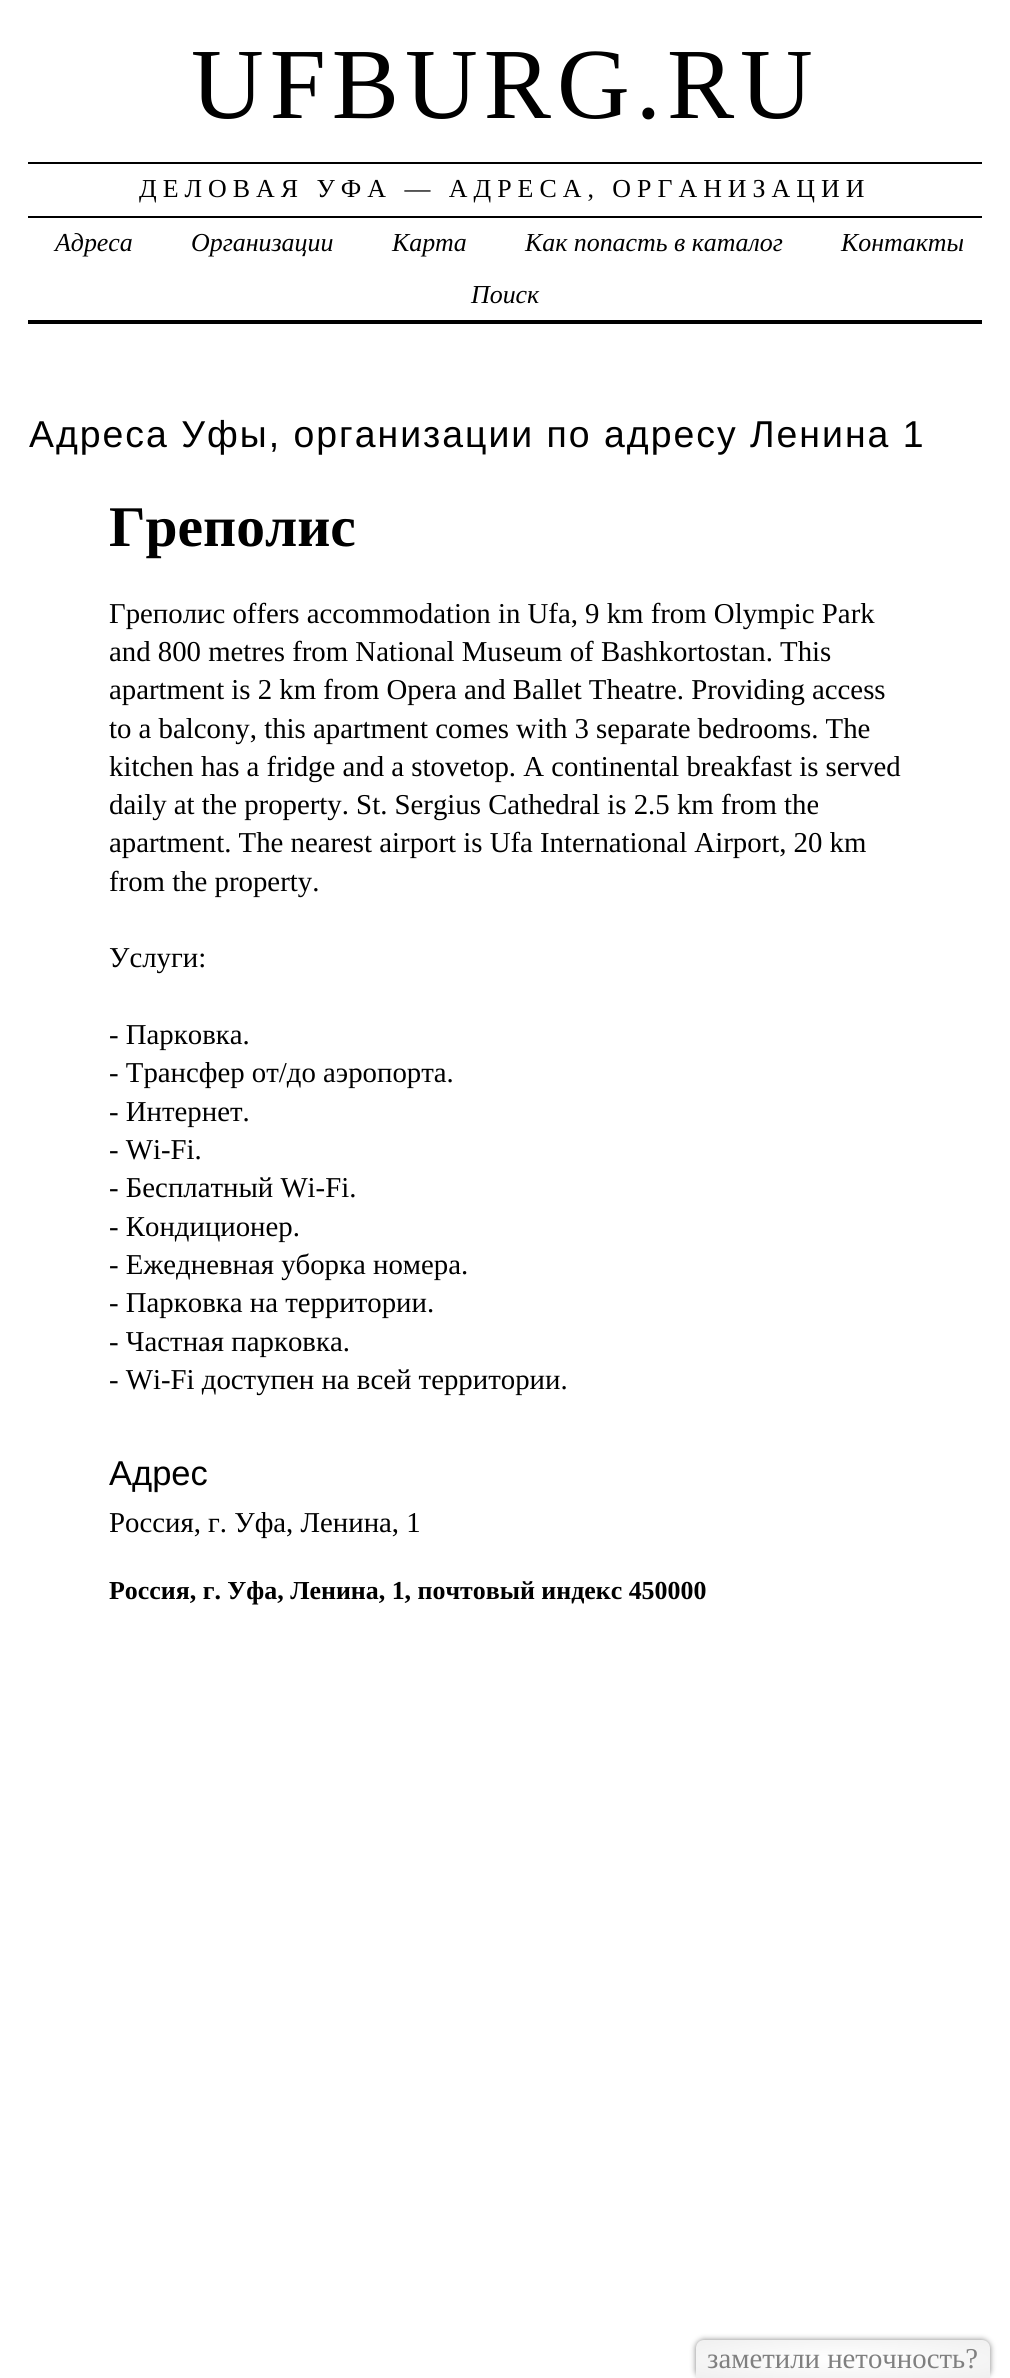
#include <cairo/cairo.h>
#include <math.h>
#include <stddef.h>

static cairo_t *cr;

static void use_color(int r, int g, int b) {
  cairo_set_source_rgb(cr, r / 255.0, g / 255.0, b / 255.0);
}

static void text(double x, double y, const char *s, const char *family, double size, int italic, int bold, int r, int g, int b) {
  cairo_select_font_face(cr, family, italic ? CAIRO_FONT_SLANT_ITALIC : CAIRO_FONT_SLANT_NORMAL,
    bold ? CAIRO_FONT_WEIGHT_BOLD : CAIRO_FONT_WEIGHT_NORMAL);
  cairo_set_font_size(cr, size);
  use_color(r, g, b);
  cairo_move_to(cr, x, y);
  cairo_show_text(cr, s);
}

static void spaced_text(double x, double y, const char *s, double letter, double word) {
  cairo_move_to(cr, x, y);
  while (*s) {
    char ch[5] = {0};
    int n = 0;
    do ch[n++] = *s++; while ((*s & 0xC0) == 0x80);
    cairo_show_text(cr, ch);
    cairo_rel_move_to(cr, letter + word * (*ch == ' '), 0);
  }
}

static void box(double x, double y, double w, double h, int r, int g, int b) {
  use_color(r, g, b);
  cairo_rectangle(cr, x, y, w, h);
  cairo_fill(cr);
}

static void round_rect(double x, double y, double w, double h, double r) {
  cairo_new_sub_path(cr);
  cairo_arc(cr, x + w - r, y + h - r, r, 0, M_PI / 2);
  cairo_arc(cr, x + r, y + h - r, r, M_PI / 2, M_PI);
  cairo_arc(cr, x + r, y + r, r, M_PI, 1.5 * M_PI);
  cairo_arc(cr, x + w - r, y + r, r, 1.5 * M_PI, 2 * M_PI);
  cairo_close_path(cr);
}

static void shadow(double x, double y, double w, double h, double r, double blur, double alpha) {
  cairo_push_group_with_content(cr, CAIRO_CONTENT_ALPHA);
  cairo_set_operator(cr, CAIRO_OPERATOR_SOURCE);
  for (int i = 15; i >= -15 && fmin(w, h) + blur * i / 3 > 0; i -= 2) {
    double e = blur * i / 6;
    cairo_set_source_rgba(cr, 0, 0, 0, alpha * erfc((i - 1) / 8.5) / 2);
    round_rect(x - e, y - e, w + 2 * e, h + 2 * e, fmax(0, fmin(r + e + blur * .6, fmin(w, h) / 2 + e)));
    cairo_fill(cr);
  }
  cairo_pattern_t *soft = cairo_pop_group(cr);
  cairo_mask(cr, soft);
  cairo_pattern_destroy(soft);
}

static void draw(void) {
  cairo_pattern_t *gradient;
  use_color(255, 255, 255);
  cairo_paint(cr);
  box(28, 162, 954, 2, 0, 0, 0);
  box(28, 216, 954, 2, 0, 0, 0);
  box(28, 320, 954, 4, 0, 0, 0);
  use_color(128, 128, 128);
  shadow(696, 2340, 294, 38, 8, 3, 1);
  gradient = cairo_pattern_create_radial(0, 0, 0, 0, 0, 1);
  cairo_pattern_set_matrix(gradient, &(cairo_matrix_t){1.0 / 208, 0, 0, 1.0 / 27, -1.0 * 843 / 208, -1.0 * 2359 / 27});
  cairo_pattern_add_color_stop_rgba(gradient, 0, 1, 1, 1, 1);
  cairo_pattern_add_color_stop_rgba(gradient, 1, 0.941, 0.941, 0.941, 1);
  cairo_set_source(cr, gradient);
  cairo_pattern_destroy(gradient);
  cairo_new_path(cr);
  cairo_move_to(cr, 704, 2340);
  cairo_line_to(cr, 982, 2340);
  cairo_curve_to(cr, 986.5, 2340, 990, 2343.5, 990, 2348);
  cairo_line_to(cr, 990, 2378);
  cairo_line_to(cr, 696, 2378);
  cairo_line_to(cr, 696, 2348);
  cairo_curve_to(cr, 696, 2343.5, 699.5, 2340, 704, 2340);
  cairo_close_path(cr);
  cairo_fill(cr);
  cairo_select_font_face(cr, "Liberation Serif", CAIRO_FONT_SLANT_NORMAL, CAIRO_FONT_WEIGHT_NORMAL);
  cairo_set_font_size(cr, 100.75);
  use_color(0, 0, 0);
  spaced_text(191, 118, "UFBURG.RU", 6, 0);
  cairo_set_font_size(cr, 25.9);
  spaced_text(139, 197, "ДЕЛОВАЯ УФА — АДРЕСА, ОРГАНИЗАЦИИ", 6, 0);
  text(55, 251, "Адреса", "Liberation Serif", 25.9, 1, 0, 0, 0, 0);
  text(191, 251, "Организации", "Liberation Serif", 25.9, 1, 0, 0, 0, 0);
  text(392, 251, "Карта", "Liberation Serif", 25.9, 1, 0, 0, 0, 0);
  text(525, 251, "Как попасть в каталог", "Liberation Serif", 25.9, 1, 0, 0, 0, 0);
  text(841, 251, "Контакты", "Liberation Serif", 25.9, 1, 0, 0, 0, 0);
  text(471, 303, "Поиск", "Liberation Serif", 25.9, 1, 0, 0, 0, 0);
  cairo_select_font_face(cr, "Liberation Sans", CAIRO_FONT_SLANT_NORMAL, CAIRO_FONT_WEIGHT_NORMAL);
  cairo_set_font_size(cr, 37.4);
  spaced_text(29, 447, "Адреса Уфы, организации по адресу", 2, 0);
  spaced_text(750, 447, "Ленина 1", 2, 0);
  text(109, 546, "Греполис", "Liberation Serif", 57.5, 0, 1, 0, 0, 0);
  text(109, 623, "Греполис offers accommodation in Ufa, 9 km from Olympic Park", "Liberation Serif", 28.8, 0, 0, 0, 0, 0);
  text(109, 661, "and 800 metres from National Museum of Bashkortostan. This", "Liberation Serif", 28.8, 0, 0, 0, 0, 0);
  text(109, 699, "apartment is 2 km from Opera and Ballet Theatre. Providing access", "Liberation Serif", 28.8, 0, 0, 0, 0, 0);
  text(109, 738, "to a balcony, this apartment comes with 3 separate bedrooms. The", "Liberation Serif", 28.8, 0, 0, 0, 0, 0);
  text(109, 776, "kitchen has a fridge and a stovetop. A continental breakfast is served", "Liberation Serif", 28.8, 0, 0, 0, 0, 0);
  text(109, 814, "daily at the property. St. Sergius Cathedral is 2.5 km from the", "Liberation Serif", 28.8, 0, 0, 0, 0, 0);
  text(109, 852, "apartment. The nearest airport is Ufa International Airport, 20 km", "Liberation Serif", 28.8, 0, 0, 0, 0, 0);
  text(109, 891, "from the property.", "Liberation Serif", 28.8, 0, 0, 0, 0, 0);
  text(109, 967, "Услуги:", "Liberation Serif", 28.8, 0, 0, 0, 0, 0);
  text(109, 1044, "- Парковка.", "Liberation Serif", 28.8, 0, 0, 0, 0, 0);
  text(109, 1082, "- Трансфер от/до аэропорта.", "Liberation Serif", 28.8, 0, 0, 0, 0, 0);
  text(109, 1121, "- Интернет.", "Liberation Serif", 28.8, 0, 0, 0, 0, 0);
  text(109, 1159, "- Wi-Fi.", "Liberation Serif", 28.8, 0, 0, 0, 0, 0);
  text(109, 1197, "- Бесплатный Wi-Fi.", "Liberation Serif", 28.8, 0, 0, 0, 0, 0);
  text(109, 1236, "- Кондиционер.", "Liberation Serif", 28.8, 0, 0, 0, 0, 0);
  text(109, 1274, "- Ежедневная уборка номера.", "Liberation Serif", 28.8, 0, 0, 0, 0, 0);
  text(109, 1312, "- Парковка на территории.", "Liberation Serif", 28.8, 0, 0, 0, 0, 0);
  text(109, 1351, "- Частная парковка.", "Liberation Serif", 28.8, 0, 0, 0, 0, 0);
  text(109, 1389, "- Wi-Fi доступен на всей территории.", "Liberation Serif", 28.8, 0, 0, 0, 0, 0);
  text(109, 1485, "Адрес", "Liberation Sans", 34.5, 0, 0, 0, 0, 0);
  text(109, 1532, "Россия, г. Уфа, Ленина, 1", "Liberation Serif", 28.8, 0, 0, 0, 0, 0);
  text(109, 1599, "Россия, г. Уфа, Ленина, 1, почтовый индекс 450000", "Liberation Serif", 25.9, 0, 1, 0, 0, 0);
  text(707, 2368, "заметили неточность?", "Liberation Serif", 28.8, 0, 0, 128, 128, 128);
}

int main(void) {
  cairo_surface_t *surface = cairo_image_surface_create(CAIRO_FORMAT_RGB24, 1010, 2378);
  cr = cairo_create(surface);
  cairo_font_options_t *options = cairo_font_options_create();
  cairo_font_options_set_hint_metrics(options, CAIRO_HINT_METRICS_OFF);
  cairo_font_options_set_hint_style(options, CAIRO_HINT_STYLE_NONE);
  cairo_set_font_options(cr, options);
  cairo_set_miter_limit(cr, 4);
  draw();
  cairo_surface_write_to_png(surface, "out.png");
  cairo_font_options_destroy(options);
  cairo_destroy(cr);
  cairo_surface_destroy(surface);
  return 0;
}
